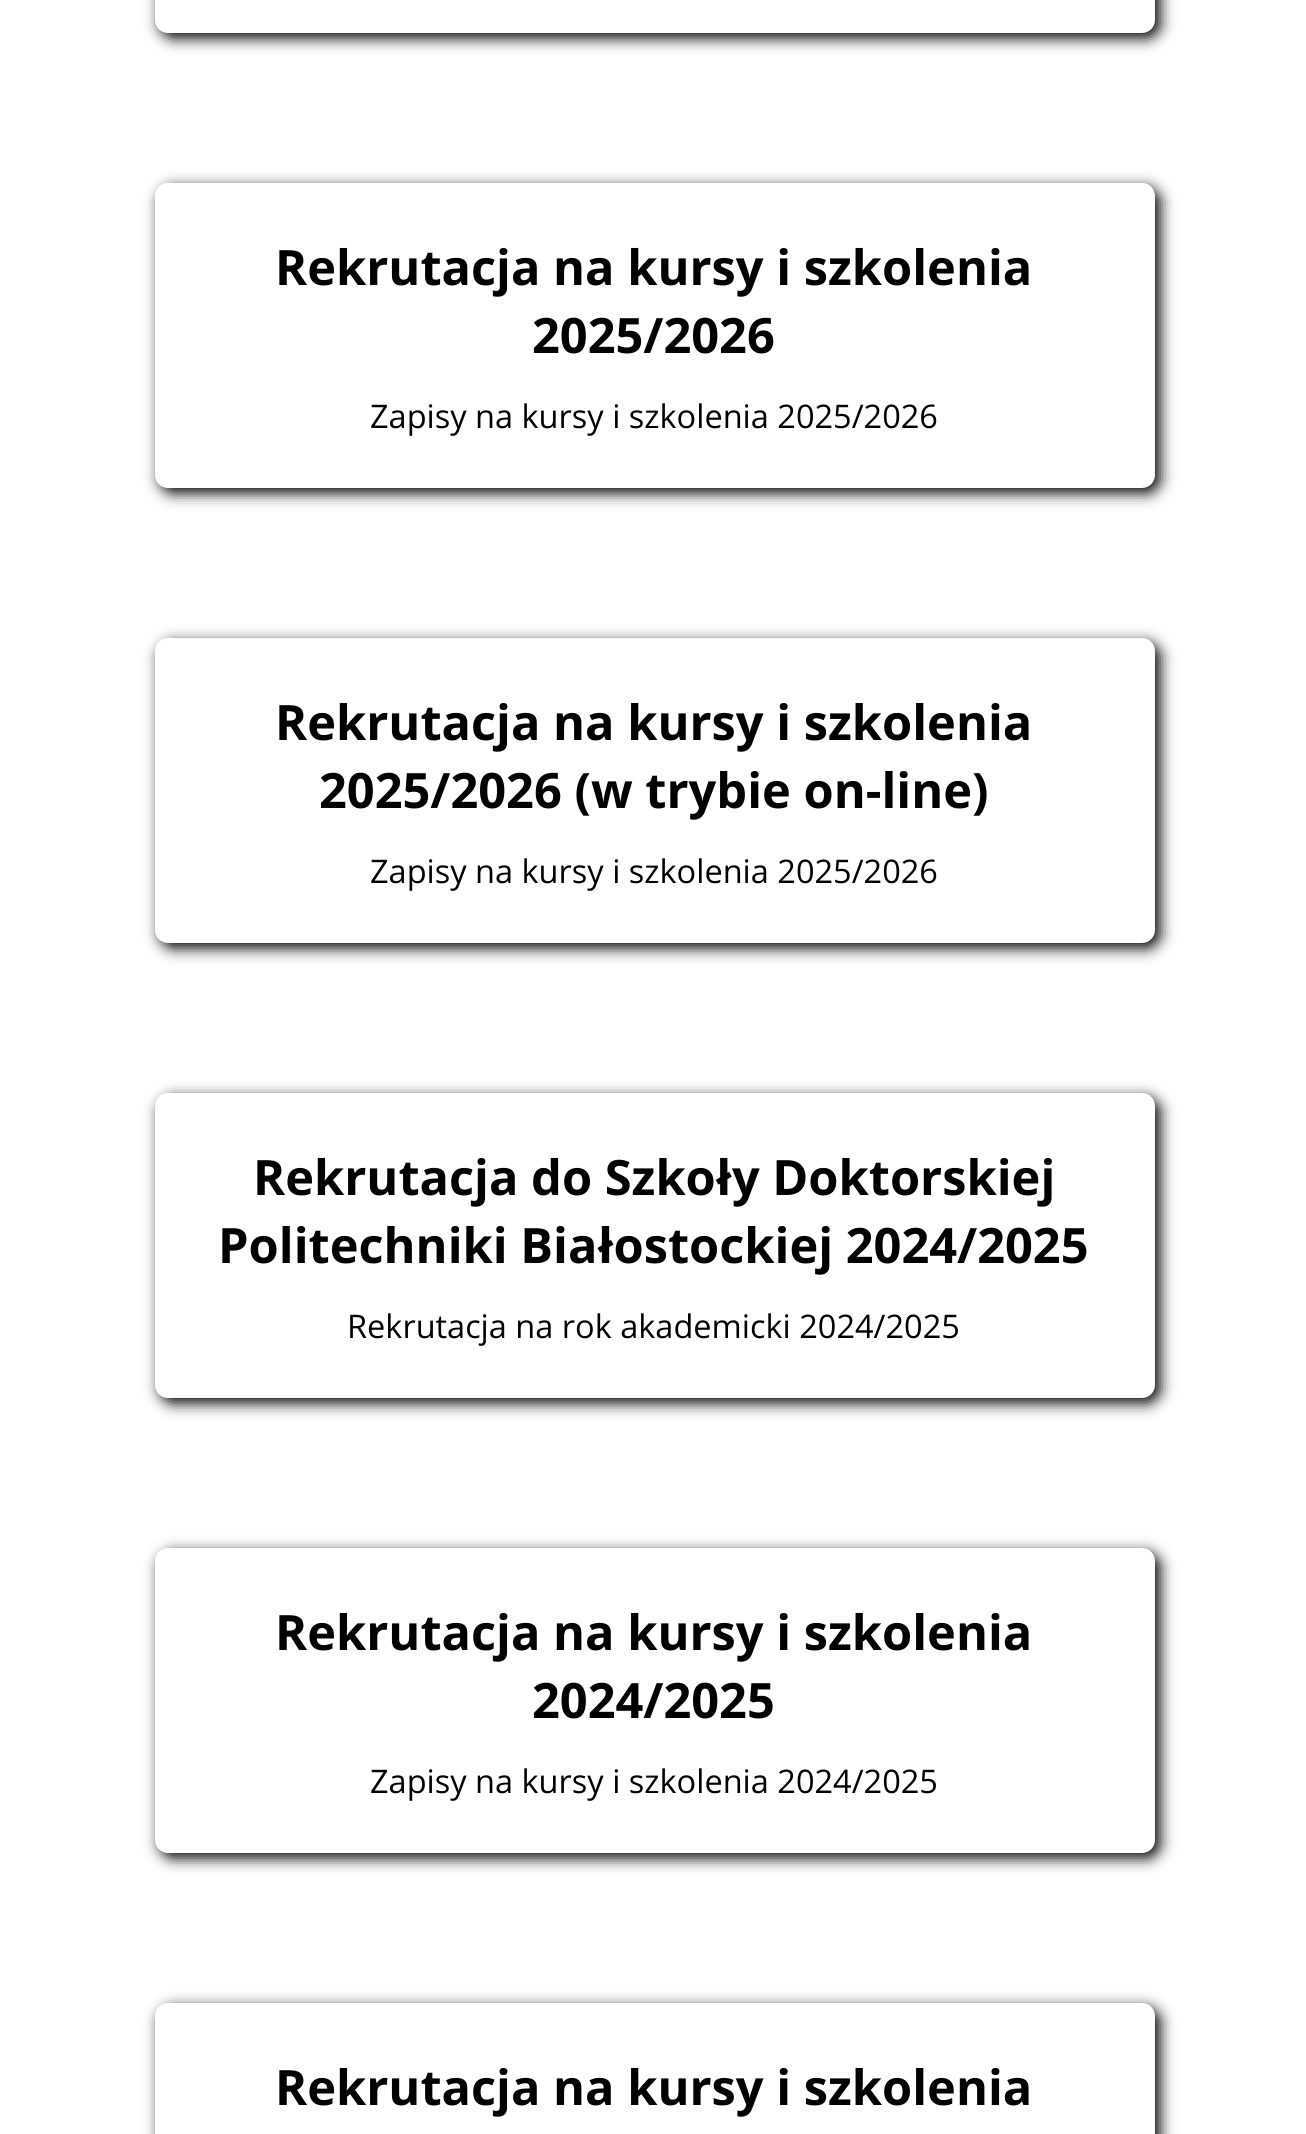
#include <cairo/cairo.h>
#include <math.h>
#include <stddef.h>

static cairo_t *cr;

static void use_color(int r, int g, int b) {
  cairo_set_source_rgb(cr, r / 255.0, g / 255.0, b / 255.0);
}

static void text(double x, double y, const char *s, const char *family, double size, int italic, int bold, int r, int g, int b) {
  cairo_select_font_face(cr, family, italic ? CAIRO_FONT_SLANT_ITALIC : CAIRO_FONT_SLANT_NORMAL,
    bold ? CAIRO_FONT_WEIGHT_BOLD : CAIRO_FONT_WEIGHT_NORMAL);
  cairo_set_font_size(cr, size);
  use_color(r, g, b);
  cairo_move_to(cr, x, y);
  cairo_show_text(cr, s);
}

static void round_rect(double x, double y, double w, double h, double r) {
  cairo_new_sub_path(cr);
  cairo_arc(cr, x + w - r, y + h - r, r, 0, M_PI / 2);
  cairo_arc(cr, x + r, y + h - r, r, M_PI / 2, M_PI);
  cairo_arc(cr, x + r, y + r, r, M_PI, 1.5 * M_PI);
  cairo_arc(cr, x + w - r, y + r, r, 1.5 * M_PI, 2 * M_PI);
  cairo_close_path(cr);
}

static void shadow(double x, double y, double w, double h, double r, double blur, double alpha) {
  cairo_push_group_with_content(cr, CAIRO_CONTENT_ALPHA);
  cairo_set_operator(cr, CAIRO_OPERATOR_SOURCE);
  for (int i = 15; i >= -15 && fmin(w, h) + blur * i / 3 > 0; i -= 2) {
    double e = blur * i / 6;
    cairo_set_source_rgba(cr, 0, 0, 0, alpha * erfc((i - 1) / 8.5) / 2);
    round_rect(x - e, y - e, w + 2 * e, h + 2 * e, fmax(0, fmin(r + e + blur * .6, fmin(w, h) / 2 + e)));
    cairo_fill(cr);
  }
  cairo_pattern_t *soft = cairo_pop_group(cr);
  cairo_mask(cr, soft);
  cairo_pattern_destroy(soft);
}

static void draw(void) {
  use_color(255, 255, 255);
  cairo_paint(cr);
  use_color(0, 0, 0);
  shadow(160, -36, 1000, 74, 13, 7.5, 1);
  use_color(255, 255, 255);
  round_rect(155, -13, 1000, 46, 13);
  cairo_fill(cr);
  use_color(0, 0, 0);
  shadow(160, 188, 1000, 305, 13, 7.5, 1);
  use_color(255, 255, 255);
  round_rect(155, 183, 1000, 305, 13);
  cairo_fill(cr);
  use_color(0, 0, 0);
  shadow(160, 643, 1000, 305, 13, 7.5, 1);
  use_color(255, 255, 255);
  round_rect(155, 638, 1000, 305, 13);
  cairo_fill(cr);
  use_color(0, 0, 0);
  shadow(160, 1098, 1000, 305, 13, 7.5, 1);
  use_color(255, 255, 255);
  round_rect(155, 1093, 1000, 305, 13);
  cairo_fill(cr);
  use_color(0, 0, 0);
  shadow(160, 1553, 1000, 305, 13, 7.5, 1);
  use_color(255, 255, 255);
  round_rect(155, 1548, 1000, 305, 13);
  cairo_fill(cr);
  use_color(0, 0, 0);
  shadow(160, 2008, 1000, 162, 13, 7.5, 1);
  use_color(255, 255, 255);
  round_rect(155, 2003, 1000, 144, 13);
  cairo_fill(cr);
  text(275, 285, "Rekrutacja na kursy i szkolenia", "Open Sans", 48.75, 0, 1, 0, 0, 0);
  text(532, 353, "2025/2026", "Open Sans", 48.75, 0, 1, 0, 0, 0);
  text(370, 428, "Zapisy na kursy i szkolenia 2025/2026", "Open Sans", 32.5, 0, 0, 0, 0, 0);
  text(275, 740, "Rekrutacja na kursy i szkolenia", "Open Sans", 48.75, 0, 1, 0, 0, 0);
  text(319, 808, "2025/2026 (w trybie on-line)", "Open Sans", 48.75, 0, 1, 0, 0, 0);
  text(370, 883, "Zapisy na kursy i szkolenia 2025/2026", "Open Sans", 32.5, 0, 0, 0, 0, 0);
  text(253, 1195, "Rekrutacja do Szkoły Doktorskiej", "Open Sans", 48.75, 0, 1, 0, 0, 0);
  text(218, 1263, "Politechniki Białostockiej 2024/2025", "Open Sans", 48.75, 0, 1, 0, 0, 0);
  text(347, 1338, "Rekrutacja na rok akademicki 2024/2025", "Open Sans", 32.5, 0, 0, 0, 0, 0);
  text(275, 1650, "Rekrutacja na kursy i szkolenia", "Open Sans", 48.75, 0, 1, 0, 0, 0);
  text(532, 1718, "2024/2025", "Open Sans", 48.75, 0, 1, 0, 0, 0);
  text(370, 1793, "Zapisy na kursy i szkolenia 2024/2025", "Open Sans", 32.5, 0, 0, 0, 0, 0);
  text(275, 2105, "Rekrutacja na kursy i szkolenia", "Open Sans", 48.75, 0, 1, 0, 0, 0);
}

int main(void) {
  cairo_surface_t *surface = cairo_image_surface_create(CAIRO_FORMAT_RGB24, 1306, 2134);
  cr = cairo_create(surface);
  cairo_font_options_t *options = cairo_font_options_create();
  cairo_font_options_set_hint_metrics(options, CAIRO_HINT_METRICS_OFF);
  cairo_font_options_set_hint_style(options, CAIRO_HINT_STYLE_NONE);
  cairo_set_font_options(cr, options);
  cairo_set_miter_limit(cr, 4);
  draw();
  cairo_surface_write_to_png(surface, "out.png");
  cairo_font_options_destroy(options);
  cairo_destroy(cr);
  cairo_surface_destroy(surface);
  return 0;
}
